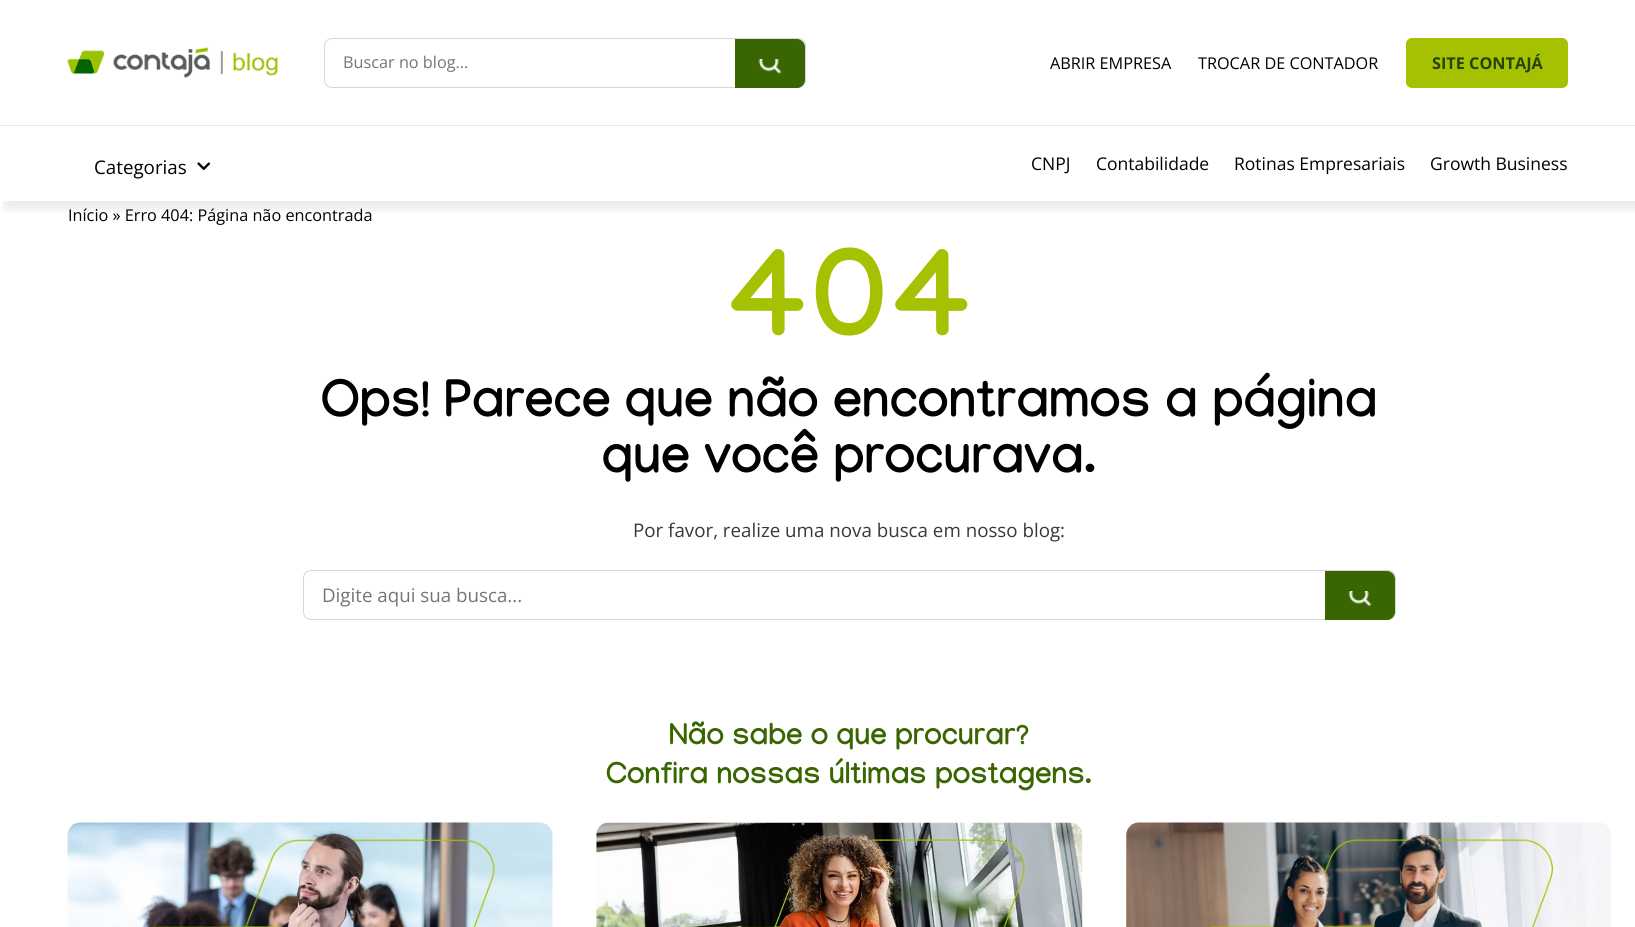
#include <cairo/cairo.h>
#include <math.h>
#include <stddef.h>

static cairo_t *cr;

static void use_color(int r, int g, int b) {
  cairo_set_source_rgb(cr, r / 255.0, g / 255.0, b / 255.0);
}

static void text(double x, double y, const char *s, const char *family, double size, int italic, int bold, int r, int g, int b) {
  cairo_select_font_face(cr, family, italic ? CAIRO_FONT_SLANT_ITALIC : CAIRO_FONT_SLANT_NORMAL,
    bold ? CAIRO_FONT_WEIGHT_BOLD : CAIRO_FONT_WEIGHT_NORMAL);
  cairo_set_font_size(cr, size);
  use_color(r, g, b);
  cairo_move_to(cr, x, y);
  cairo_show_text(cr, s);
}

static void box(double x, double y, double w, double h, int r, int g, int b) {
  use_color(r, g, b);
  cairo_rectangle(cr, x, y, w, h);
  cairo_fill(cr);
}

static void round_rect(double x, double y, double w, double h, double r) {
  cairo_new_sub_path(cr);
  cairo_arc(cr, x + w - r, y + h - r, r, 0, M_PI / 2);
  cairo_arc(cr, x + r, y + h - r, r, M_PI / 2, M_PI);
  cairo_arc(cr, x + r, y + r, r, M_PI, 1.5 * M_PI);
  cairo_arc(cr, x + w - r, y + r, r, 1.5 * M_PI, 2 * M_PI);
  cairo_close_path(cr);
}

static void shadow(double x, double y, double w, double h, double r, double blur, double alpha) {
  cairo_push_group_with_content(cr, CAIRO_CONTENT_ALPHA);
  cairo_set_operator(cr, CAIRO_OPERATOR_SOURCE);
  for (int i = 15; i >= -15 && fmin(w, h) + blur * i / 3 > 0; i -= 2) {
    double e = blur * i / 6;
    cairo_set_source_rgba(cr, 0, 0, 0, alpha * erfc((i - 1) / 8.5) / 2);
    round_rect(x - e, y - e, w + 2 * e, h + 2 * e, fmax(0, fmin(r + e + blur * .6, fmin(w, h) / 2 + e)));
    cairo_fill(cr);
  }
  cairo_pattern_t *soft = cairo_pop_group(cr);
  cairo_mask(cr, soft);
  cairo_pattern_destroy(soft);
}

static void picture(const char *path, double x, double y, double w, double h) {
  cairo_surface_t *image = cairo_image_surface_create_from_png(path);
  cairo_save(cr);
  cairo_set_source_surface(cr, image, x, y);
  cairo_rectangle(cr, x, y, w, h);
  cairo_fill(cr);
  cairo_restore(cr);
  cairo_surface_destroy(image);
}

static void draw(void) {
  use_color(255, 255, 255);
  cairo_paint(cr);
  cairo_save(cr);
  cairo_rectangle(cr, 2, 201, 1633, 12);
  cairo_clip(cr);
  use_color(0, 0, 0);
  shadow(6, 133, 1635, 75, 0, 6, 0.1);
  cairo_restore(cr);
  picture("img_01.png", 197, 162, 14, 9);
  box(0, 125, 1635, 1, 230, 230, 230);
  picture("img_02.png", 67, 47, 211, 31);
  round_rect(324.5, 38.5, 481, 49, 7.5);
  use_color(215, 215, 215);
  cairo_set_line_width(cr, 1);
  cairo_stroke(cr);
  use_color(57, 102, 0);
  cairo_new_path(cr);
  cairo_move_to(cr, 735.5, 39.5);
  cairo_line_to(cr, 797, 39.5);
  cairo_curve_to(cr, 801, 39.5, 804.5, 43, 804.5, 47);
  cairo_line_to(cr, 804.5, 80);
  cairo_curve_to(cr, 804.5, 84, 801, 87.5, 797, 87.5);
  cairo_line_to(cr, 735.5, 87.5);
  cairo_close_path(cr);
  cairo_fill_preserve(cr);
  cairo_stroke(cr);
  picture("img_03.png", 758, 59, 24, 15);
  use_color(166, 193, 1);
  round_rect(1406, 38, 162, 50, 6);
  cairo_fill(cr);
  round_rect(303.5, 570.5, 1092, 49, 7.5);
  use_color(215, 215, 215);
  cairo_stroke(cr);
  use_color(57, 102, 0);
  cairo_new_path(cr);
  cairo_move_to(cr, 1325.5, 571.5);
  cairo_line_to(cr, 1387, 571.5);
  cairo_curve_to(cr, 1391, 571.5, 1394.5, 575, 1394.5, 579);
  cairo_line_to(cr, 1394.5, 612);
  cairo_curve_to(cr, 1394.5, 616, 1391, 619.5, 1387, 619.5);
  cairo_line_to(cr, 1325.5, 619.5);
  cairo_close_path(cr);
  cairo_fill_preserve(cr);
  cairo_stroke(cr);
  picture("img_04.png", 1348, 591, 24, 16);
  picture("img_05.png", 67, 822, 486, 105);
  picture("img_06.png", 596, 822, 487, 105);
  picture("img_07.png", 1126, 822, 485, 105);
  text(94, 174, "Categorias", "Open Sans", 18.75, 0, 0, 0, 0, 0);
  text(343, 68, "Buscar no blog...", "Open Sans", 16.25, 0, 0, 117, 117, 117);
  text(1050, 69, "ABRIR EMPRESA", "Open Sans", 16.25, 0, 0, 0, 0, 0);
  text(1198, 69, "TROCAR DE CONTADOR", "Open Sans", 16.25, 0, 0, 0, 0, 0);
  text(1432, 69, "SITE CONTAJÁ", "Open Sans", 16.25, 0, 1, 39, 67, 3);
  text(1031, 170, "CNPJ", "Open Sans", 17.5, 0, 0, 0, 0, 0);
  text(1096, 170, "Contabilidade", "Open Sans", 17.5, 0, 0, 0, 0, 0);
  text(1234, 170, "Rotinas Empresariais", "Open Sans", 17.5, 0, 0, 0, 0, 0);
  text(1430, 170, "Growth Business", "Open Sans", 17.5, 0, 0, 0, 0, 0);
  text(68, 221, "Início » Erro 404: Página não encontrada", "Open Sans", 16.25, 0, 0, 0, 0, 0);
  text(725, 334, "404", "Manjari", 128, 0, 1, 166, 193, 1);
  text(321, 416, "Ops! Parece que não encontramos a página", "Manjari", 52.5, 0, 1, 0, 0, 0);
  text(602, 472, "que você procurava.", "Manjari", 52.5, 0, 1, 0, 0, 0);
  text(633, 537, "Por favor, realize uma nova busca em nosso blog:", "Open Sans", 18.75, 0, 0, 52, 58, 64);
  text(322, 602, "Digite aqui sua busca...", "Open Sans", 18.75, 0, 0, 117, 117, 117);
  text(669, 744, "Não sabe o que procurar?", "Manjari", 30, 0, 1, 57, 102, 0);
  text(606, 783, "Confira nossas últimas postagens.", "Manjari", 30, 0, 1, 57, 102, 0);
}

int main(void) {
  cairo_surface_t *surface = cairo_image_surface_create(CAIRO_FORMAT_RGB24, 1635, 927);
  cr = cairo_create(surface);
  cairo_font_options_t *options = cairo_font_options_create();
  cairo_font_options_set_hint_metrics(options, CAIRO_HINT_METRICS_OFF);
  cairo_font_options_set_hint_style(options, CAIRO_HINT_STYLE_NONE);
  cairo_set_font_options(cr, options);
  cairo_set_miter_limit(cr, 4);
  draw();
  cairo_surface_write_to_png(surface, "out.png");
  cairo_font_options_destroy(options);
  cairo_destroy(cr);
  cairo_surface_destroy(surface);
  return 0;
}
